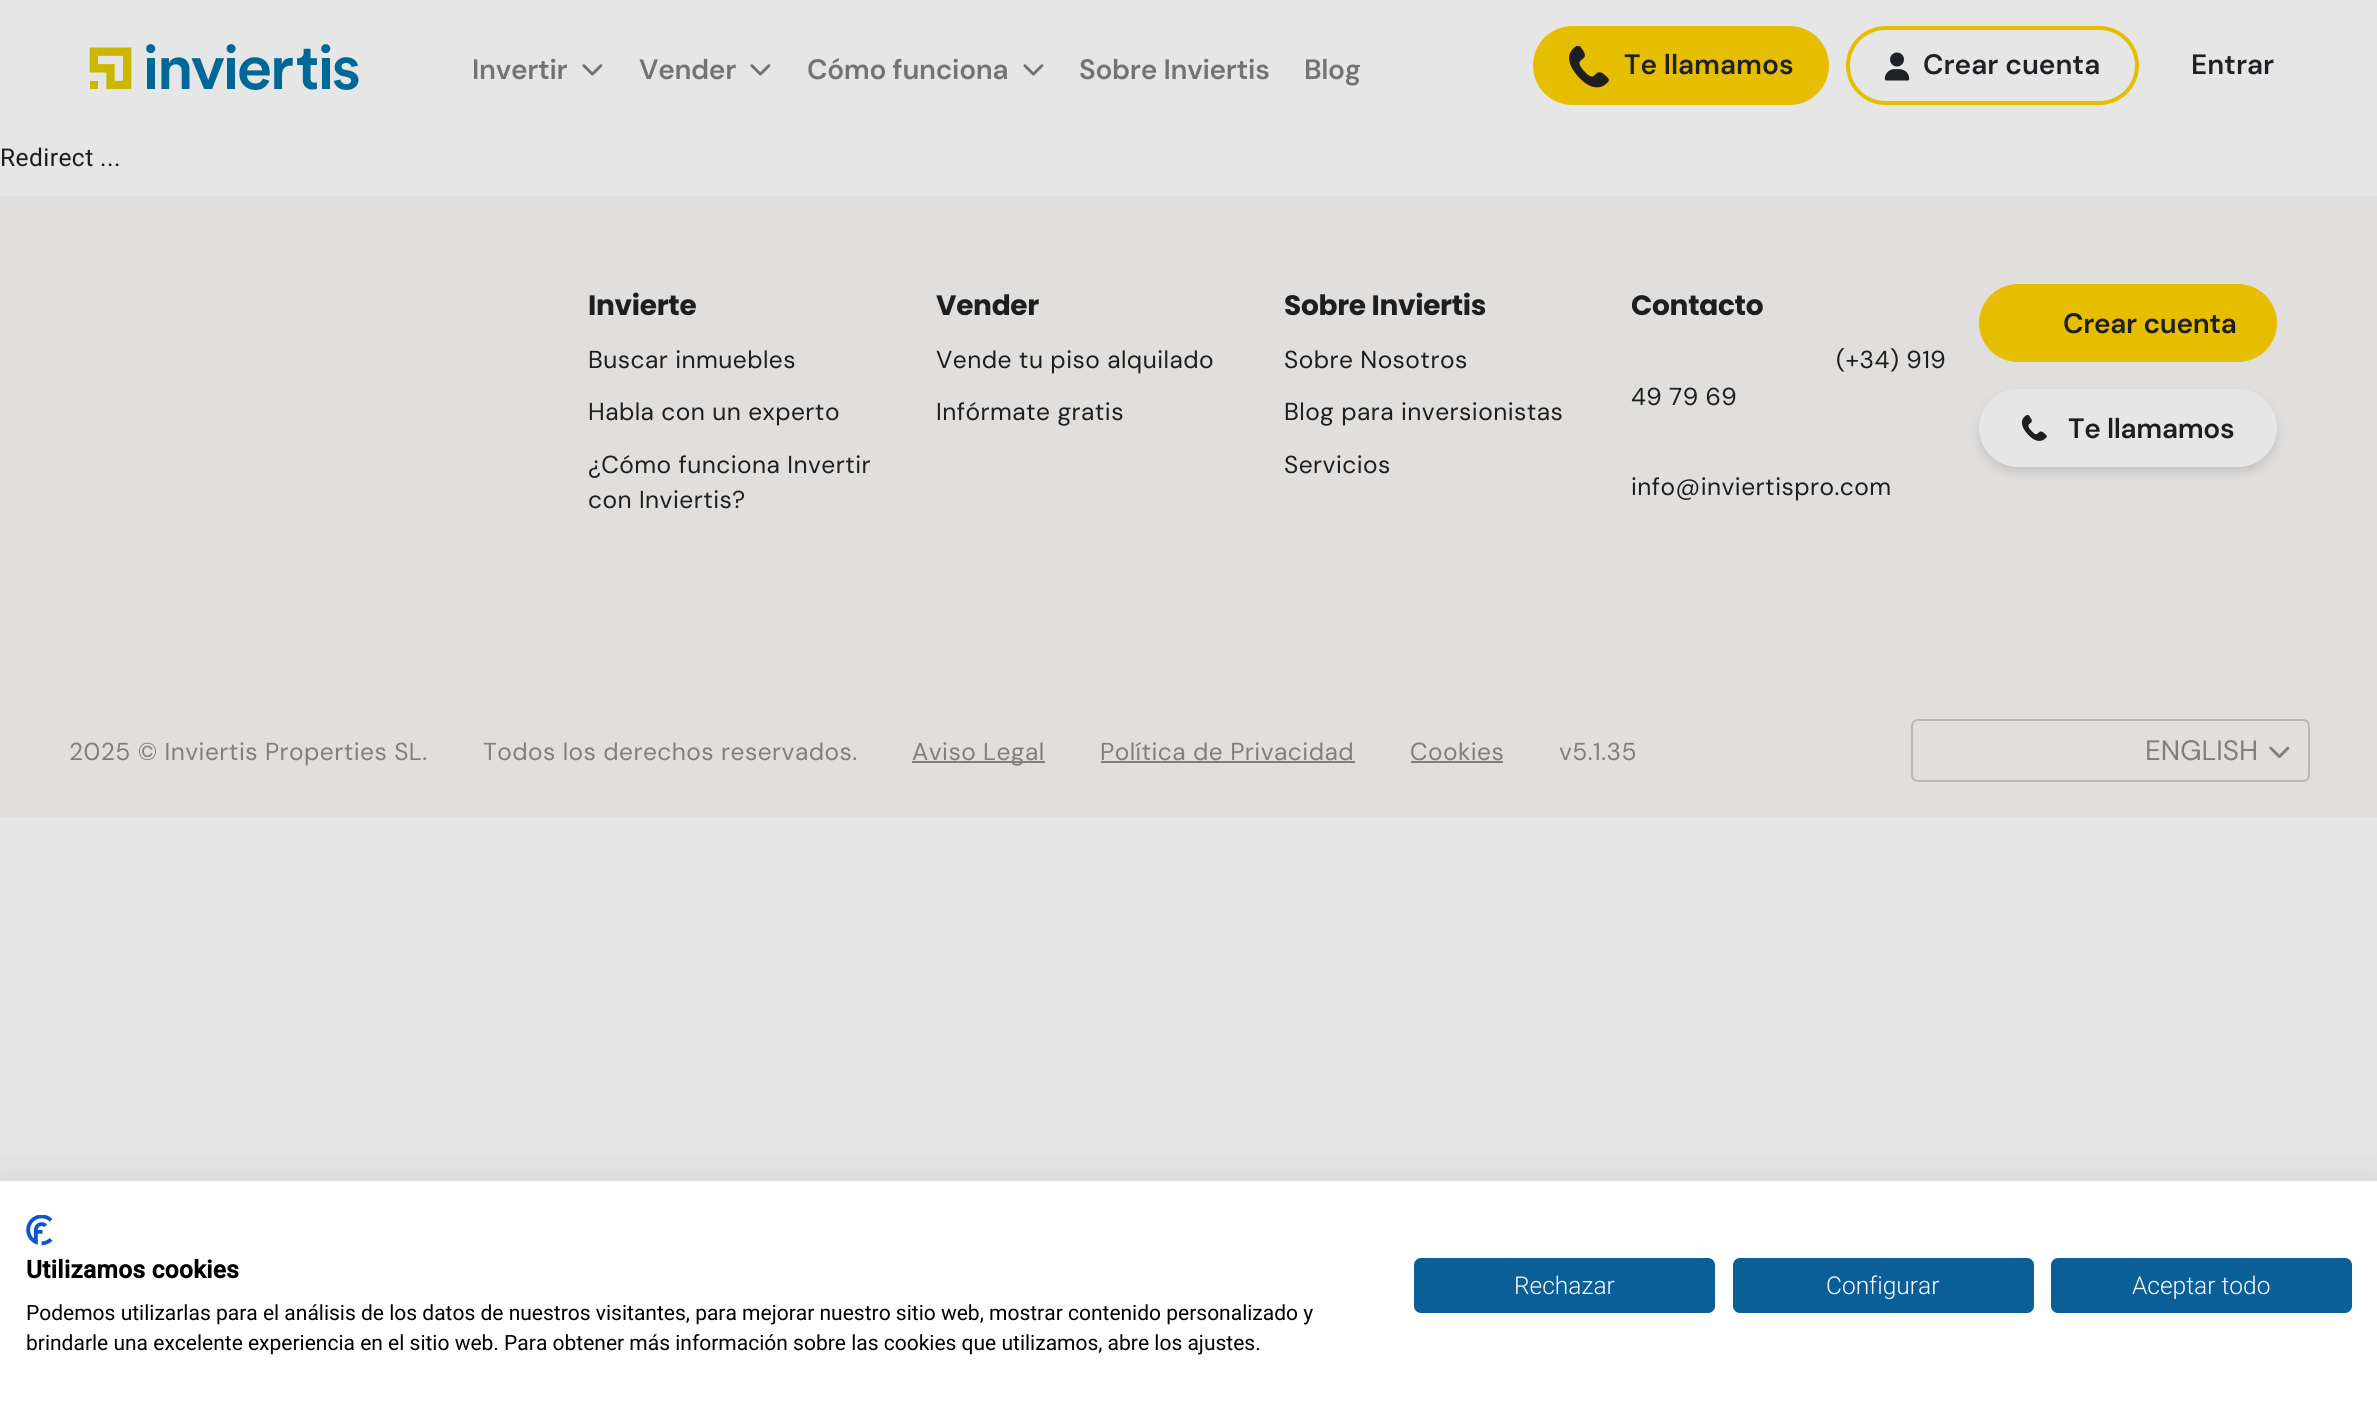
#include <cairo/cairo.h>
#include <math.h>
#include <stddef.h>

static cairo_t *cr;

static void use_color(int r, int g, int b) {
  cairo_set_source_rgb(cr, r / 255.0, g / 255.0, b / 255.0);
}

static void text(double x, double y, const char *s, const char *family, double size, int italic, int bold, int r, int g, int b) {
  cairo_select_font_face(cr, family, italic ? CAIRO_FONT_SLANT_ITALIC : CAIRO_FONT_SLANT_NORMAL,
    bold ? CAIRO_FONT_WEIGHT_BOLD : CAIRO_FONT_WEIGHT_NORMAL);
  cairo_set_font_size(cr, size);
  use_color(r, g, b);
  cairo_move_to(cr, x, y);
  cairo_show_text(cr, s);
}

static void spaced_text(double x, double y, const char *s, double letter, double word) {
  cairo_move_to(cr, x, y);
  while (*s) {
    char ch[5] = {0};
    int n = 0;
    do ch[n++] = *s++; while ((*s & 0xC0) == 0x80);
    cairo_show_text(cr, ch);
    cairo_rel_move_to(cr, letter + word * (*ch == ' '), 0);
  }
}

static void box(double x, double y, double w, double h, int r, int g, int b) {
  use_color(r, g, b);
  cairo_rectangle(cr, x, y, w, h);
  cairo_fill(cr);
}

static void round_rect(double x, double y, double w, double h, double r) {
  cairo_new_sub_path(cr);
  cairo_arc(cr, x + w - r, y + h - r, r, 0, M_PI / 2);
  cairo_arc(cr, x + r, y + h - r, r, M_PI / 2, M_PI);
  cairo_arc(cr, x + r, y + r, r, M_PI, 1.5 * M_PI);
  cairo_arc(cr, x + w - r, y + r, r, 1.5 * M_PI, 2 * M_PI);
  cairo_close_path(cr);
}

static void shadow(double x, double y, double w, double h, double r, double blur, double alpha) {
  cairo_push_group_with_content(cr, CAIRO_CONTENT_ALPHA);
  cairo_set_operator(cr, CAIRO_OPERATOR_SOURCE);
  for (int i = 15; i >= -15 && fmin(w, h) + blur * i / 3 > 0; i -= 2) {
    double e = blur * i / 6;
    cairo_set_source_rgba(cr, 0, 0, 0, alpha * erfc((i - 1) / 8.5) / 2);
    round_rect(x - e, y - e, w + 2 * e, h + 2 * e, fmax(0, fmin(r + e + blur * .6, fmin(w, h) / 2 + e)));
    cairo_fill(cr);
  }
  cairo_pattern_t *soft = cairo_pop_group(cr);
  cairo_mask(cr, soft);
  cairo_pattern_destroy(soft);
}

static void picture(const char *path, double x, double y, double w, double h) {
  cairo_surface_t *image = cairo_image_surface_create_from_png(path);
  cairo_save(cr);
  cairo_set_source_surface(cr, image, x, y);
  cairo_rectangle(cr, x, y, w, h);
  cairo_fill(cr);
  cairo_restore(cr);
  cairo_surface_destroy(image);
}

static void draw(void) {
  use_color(230, 230, 230);
  cairo_paint(cr);
  picture("img_01.png", 89, 44, 270, 46);
  picture("img_02.png", 582, 64, 21, 12);
  picture("img_02.png", 750, 64, 21, 12);
  picture("img_02.png", 1023, 64, 21, 12);
  use_color(230, 190, 0);
  round_rect(1533, 26, 296, 79, 39.5);
  cairo_fill(cr);
  picture("img_03.png", 1569, 46, 40, 42);
  round_rect(1848, 28, 289, 75, 37.5);
  cairo_set_line_width(cr, 4);
  cairo_stroke(cr);
  picture("img_04.png", 1884, 52, 26, 29);
  box(0, 196, 2377, 621, 225, 223, 221);
  use_color(230, 190, 0);
  round_rect(1979, 284, 298, 78, 39);
  cairo_fill(cr);
  use_color(0, 0, 0);
  shadow(1979, 394, 298, 79, 39.5, 5, 0.12);
  use_color(230, 230, 230);
  round_rect(1979, 389, 298, 78, 39);
  cairo_fill(cr);
  picture("img_05.png", 2021, 415, 26, 26);
  box(912, 761, 133, 2, 128, 127, 126);
  box(1101, 761, 254, 2, 128, 127, 126);
  box(1411, 761, 92, 2, 128, 127, 126);
  round_rect(1912, 720, 397, 61, 6);
  use_color(185, 184, 182);
  cairo_set_line_width(cr, 2);
  cairo_stroke(cr);
  picture("img_06.png", 2269, 746, 21, 12);
  use_color(0, 0, 0);
  shadow(0, 1181, 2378, 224, 0, 21, 0.1);
  box(0, 1181, 2377, 223, 255, 255, 255);
  picture("img_07.png", 26, 1215, 27, 31);
  use_color(11, 95, 151);
  round_rect(1415, 1259, 299, 53, 6);
  cairo_fill_preserve(cr);
  cairo_stroke(cr);
  round_rect(1734, 1259, 299, 53, 6);
  cairo_fill_preserve(cr);
  cairo_stroke(cr);
  round_rect(2052, 1259, 299, 53, 6);
  cairo_fill_preserve(cr);
  cairo_stroke(cr);
  cairo_select_font_face(cr, "DM Sans SemiBold", CAIRO_FONT_SLANT_NORMAL, CAIRO_FONT_WEIGHT_NORMAL);
  cairo_set_font_size(cr, 28);
  use_color(115, 115, 115);
  spaced_text(472, 79, "Invertir", -0.3, 0);
  spaced_text(639, 79, "Vender", -0.3, 0);
  spaced_text(807, 79, "Cómo funciona", -0.3, 0);
  spaced_text(1079, 79, "Sobre Inviertis", -0.3, 0);
  spaced_text(1304, 79, "Blog", -0.3, 0);
  text(1624, 74, "Te llamamos", "DM Sans SemiBold", 28, 0, 0, 30, 33, 37);
  text(1923, 74, "Crear cuenta", "DM Sans SemiBold", 28, 0, 0, 30, 33, 37);
  text(2191, 74, "Entrar", "DM Sans SemiBold", 28, 0, 0, 30, 33, 37);
  cairo_select_font_face(cr, "Roboto", CAIRO_FONT_SLANT_NORMAL, CAIRO_FONT_WEIGHT_NORMAL);
  cairo_set_font_size(cr, 24.5);
  use_color(30, 30, 30);
  spaced_text(0, 166, "Redirect ...", 0.45, 0);
  cairo_select_font_face(cr, "Poppins", CAIRO_FONT_SLANT_NORMAL, CAIRO_FONT_WEIGHT_BOLD);
  cairo_set_font_size(cr, 28);
  spaced_text(588, 315, "Invierte", -0.3, 0);
  cairo_select_font_face(cr, "DM Sans", CAIRO_FONT_SLANT_NORMAL, CAIRO_FONT_WEIGHT_NORMAL);
  cairo_set_font_size(cr, 24.5);
  spaced_text(588, 368, "Buscar inmuebles", 0.45, 0);
  spaced_text(588, 420, "Habla con un experto", 0.45, 0);
  spaced_text(588, 473, "¿Cómo funciona Invertir", 0.45, 0);
  spaced_text(588, 508, "con Inviertis?", 0.45, 0);
  cairo_select_font_face(cr, "Poppins", CAIRO_FONT_SLANT_NORMAL, CAIRO_FONT_WEIGHT_BOLD);
  cairo_set_font_size(cr, 28);
  spaced_text(936, 315, "Vender", -0.3, 0);
  cairo_select_font_face(cr, "DM Sans", CAIRO_FONT_SLANT_NORMAL, CAIRO_FONT_WEIGHT_NORMAL);
  cairo_set_font_size(cr, 24.5);
  spaced_text(936, 368, "Vende tu piso alquilado", 0.45, 0);
  spaced_text(936, 420, "Infórmate gratis", 0.45, 0);
  cairo_select_font_face(cr, "Poppins", CAIRO_FONT_SLANT_NORMAL, CAIRO_FONT_WEIGHT_BOLD);
  cairo_set_font_size(cr, 28);
  spaced_text(1284, 315, "Sobre Inviertis", -0.3, 0);
  cairo_select_font_face(cr, "DM Sans", CAIRO_FONT_SLANT_NORMAL, CAIRO_FONT_WEIGHT_NORMAL);
  cairo_set_font_size(cr, 24.5);
  spaced_text(1284, 368, "Sobre Nosotros", 0.45, 0);
  spaced_text(1284, 420, "Blog para inversionistas", 0.45, 0);
  spaced_text(1284, 473, "Servicios", 0.45, 0);
  cairo_select_font_face(cr, "Poppins", CAIRO_FONT_SLANT_NORMAL, CAIRO_FONT_WEIGHT_BOLD);
  cairo_set_font_size(cr, 28);
  spaced_text(1631, 315, "Contacto", -0.3, 0);
  cairo_select_font_face(cr, "DM Sans", CAIRO_FONT_SLANT_NORMAL, CAIRO_FONT_WEIGHT_NORMAL);
  cairo_set_font_size(cr, 24.5);
  spaced_text(1836, 368, "(+34) 919", 0.45, 0);
  spaced_text(1631, 405, "49 79 69", 0.45, 0);
  spaced_text(1631, 495, "info@inviertispro.com", 0.45, 0);
  cairo_select_font_face(cr, "DM Sans SemiBold", CAIRO_FONT_SLANT_NORMAL, CAIRO_FONT_WEIGHT_NORMAL);
  cairo_set_font_size(cr, 28);
  spaced_text(2063, 333, "Crear cuenta", -0.3, 0);
  spaced_text(2068, 438, "Te llamamos", -0.3, 0);
  cairo_select_font_face(cr, "DM Sans", CAIRO_FONT_SLANT_NORMAL, CAIRO_FONT_WEIGHT_NORMAL);
  cairo_set_font_size(cr, 24.5);
  use_color(128, 127, 126);
  spaced_text(69, 760, "2025 © Inviertis Properties SL.", 0.45, 0);
  spaced_text(483, 760, "Todos los derechos reservados.", 0.45, 0);
  spaced_text(912, 760, "Aviso Legal", 0.45, 0);
  spaced_text(1100, 760, "Política de Privacidad", 0.45, 0);
  spaced_text(1410, 760, "Cookies", 0.45, 0);
  spaced_text(1559, 760, "v5.1.35", 0.45, 0);
  text(2145, 760, "ENGLISH", "DM Sans", 28, 0, 0, 128, 127, 126);
  cairo_select_font_face(cr, "Roboto", CAIRO_FONT_SLANT_NORMAL, CAIRO_FONT_WEIGHT_BOLD);
  cairo_set_font_size(cr, 24.5);
  use_color(0, 0, 0);
  spaced_text(26, 1278, "Utilizamos cookies", 0.3, 0);
  text(26, 1320, "Podemos utilizarlas para el análisis de los datos de nuestros visitantes, para mejorar nuestro sitio web, mostrar contenido personalizado y", "Roboto", 21, 0, 0, 0, 0, 0);
  text(26, 1350, "brindarle una excelente experiencia en el sitio web. Para obtener más información sobre las cookies que utilizamos, abre los ajustes.", "Roboto", 21, 0, 0, 0, 0, 0);
  text(1514, 1294, "Rechazar", "Roboto Light", 24.5, 0, 0, 255, 255, 255);
  text(1826, 1294, "Configurar", "Roboto Light", 24.5, 0, 0, 255, 255, 255);
  text(2132, 1294, "Aceptar todo", "Roboto Light", 24.5, 0, 0, 255, 255, 255);
}

int main(void) {
  cairo_surface_t *surface = cairo_image_surface_create(CAIRO_FORMAT_RGB24, 2377, 1404);
  cr = cairo_create(surface);
  cairo_font_options_t *options = cairo_font_options_create();
  cairo_font_options_set_hint_metrics(options, CAIRO_HINT_METRICS_OFF);
  cairo_font_options_set_hint_style(options, CAIRO_HINT_STYLE_NONE);
  cairo_set_font_options(cr, options);
  cairo_set_miter_limit(cr, 4);
  draw();
  cairo_surface_write_to_png(surface, "out.png");
  cairo_font_options_destroy(options);
  cairo_destroy(cr);
  cairo_surface_destroy(surface);
  return 0;
}
